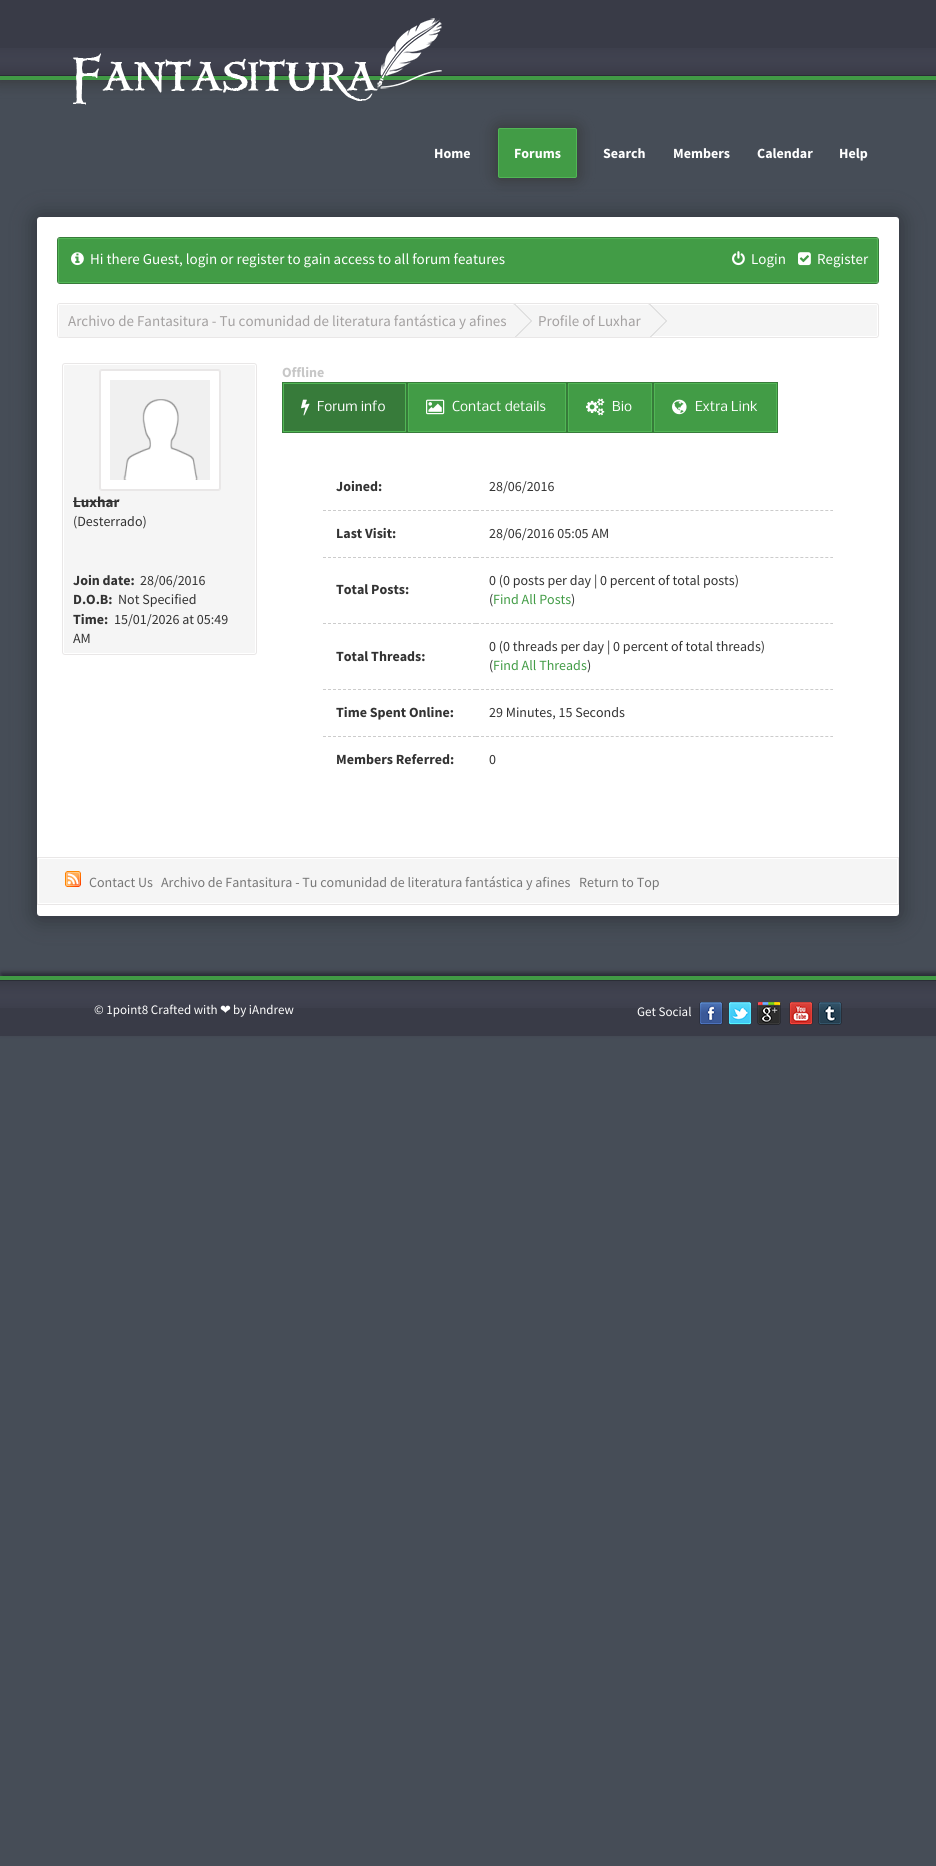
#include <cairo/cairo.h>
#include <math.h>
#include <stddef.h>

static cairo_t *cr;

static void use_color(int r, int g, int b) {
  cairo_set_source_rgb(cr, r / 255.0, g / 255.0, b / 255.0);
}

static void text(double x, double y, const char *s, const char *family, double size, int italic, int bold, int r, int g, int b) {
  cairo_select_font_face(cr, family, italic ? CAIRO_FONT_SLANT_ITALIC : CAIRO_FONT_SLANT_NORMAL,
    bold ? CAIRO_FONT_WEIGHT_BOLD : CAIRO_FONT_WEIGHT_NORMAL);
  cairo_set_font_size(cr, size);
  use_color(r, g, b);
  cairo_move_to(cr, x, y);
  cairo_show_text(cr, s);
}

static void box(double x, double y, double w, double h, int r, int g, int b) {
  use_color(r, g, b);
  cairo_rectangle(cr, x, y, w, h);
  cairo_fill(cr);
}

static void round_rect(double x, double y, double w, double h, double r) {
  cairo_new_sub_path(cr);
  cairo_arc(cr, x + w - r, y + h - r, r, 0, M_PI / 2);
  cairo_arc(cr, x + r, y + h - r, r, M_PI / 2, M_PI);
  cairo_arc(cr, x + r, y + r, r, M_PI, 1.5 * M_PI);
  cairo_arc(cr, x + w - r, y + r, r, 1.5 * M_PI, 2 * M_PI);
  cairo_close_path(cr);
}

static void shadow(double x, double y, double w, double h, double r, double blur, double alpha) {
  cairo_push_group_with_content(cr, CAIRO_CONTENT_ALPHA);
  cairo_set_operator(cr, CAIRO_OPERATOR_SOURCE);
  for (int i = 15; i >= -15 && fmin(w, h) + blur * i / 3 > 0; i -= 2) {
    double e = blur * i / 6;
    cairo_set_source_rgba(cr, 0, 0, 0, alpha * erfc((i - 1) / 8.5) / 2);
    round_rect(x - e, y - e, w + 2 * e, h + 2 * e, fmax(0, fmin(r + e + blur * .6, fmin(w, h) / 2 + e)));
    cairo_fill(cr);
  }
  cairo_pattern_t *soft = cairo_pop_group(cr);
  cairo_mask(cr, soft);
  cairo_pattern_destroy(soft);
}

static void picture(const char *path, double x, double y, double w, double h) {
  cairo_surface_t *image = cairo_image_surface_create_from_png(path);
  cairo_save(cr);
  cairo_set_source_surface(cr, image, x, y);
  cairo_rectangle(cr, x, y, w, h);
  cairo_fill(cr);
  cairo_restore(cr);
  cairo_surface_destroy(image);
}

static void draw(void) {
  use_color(70, 77, 87);
  cairo_paint(cr);
  use_color(50, 50, 50);
  shadow(-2, -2, 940, 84, 0, 7.5, 0.75);
  box(0, 0, 936, 48, 57, 59, 71);
  picture("img_01.png", 0, 48, 936, 32);
  picture("img_02.png", 73, 18, 369, 87);
  use_color(50, 50, 50);
  shadow(496, 126, 83, 54, 4, 7.5, 0.75);
  use_color(66, 156, 70);
  round_rect(498.5, 128.5, 78, 49, 1.5);
  cairo_fill_preserve(cr);
  use_color(81, 182, 85);
  cairo_set_line_width(cr, 1);
  cairo_stroke(cr);
  use_color(51, 56, 63);
  shadow(33, 214, 870, 707, 7, 10, 1);
  use_color(255, 255, 255);
  round_rect(37, 217, 862, 699, 3);
  cairo_fill(cr);
  use_color(66, 156, 70);
  round_rect(58.5, 238.5, 819, 44, 1.5);
  cairo_fill_preserve(cr);
  use_color(81, 182, 85);
  cairo_stroke(cr);
  round_rect(57.5, 237.5, 821, 46, 2.5);
  use_color(55, 123, 58);
  cairo_stroke(cr);
  picture("img_03.png", 71, 252, 13, 14);
  picture("img_04.png", 732, 251, 13, 15);
  picture("img_05.png", 798, 252, 13, 14);
  use_color(245, 245, 245);
  round_rect(58.5, 304.5, 819, 32, 1.5);
  cairo_fill_preserve(cr);
  use_color(255, 255, 255);
  cairo_stroke(cr);
  round_rect(57.5, 303.5, 821, 34, 2.5);
  use_color(233, 231, 231);
  cairo_stroke(cr);
  use_color(245, 245, 245);
  cairo_new_path(cr);
  cairo_move_to(cr, 60, 304);
  cairo_line_to(cr, 516, 304);
  cairo_line_to(cr, 516, 337);
  cairo_line_to(cr, 60, 337);
  cairo_curve_to(cr, 59, 337, 58, 336, 58, 335);
  cairo_line_to(cr, 58, 306);
  cairo_curve_to(cr, 58, 305, 59, 304, 60, 304);
  cairo_close_path(cr);
  cairo_fill(cr);
  use_color(255, 255, 255);
  cairo_new_path(cr);
  cairo_move_to(cr, 59, 305);
  cairo_line_to(cr, 515, 305);
  cairo_line_to(cr, 515, 337);
  cairo_line_to(cr, 516, 337);
  cairo_line_to(cr, 516, 304);
  cairo_line_to(cr, 60, 304);
  cairo_curve_to(cr, 59, 304, 58, 305, 58, 306);
  cairo_line_to(cr, 58, 335);
  cairo_curve_to(cr, 58, 336, 58, 336, 59, 337);
  cairo_close_path(cr);
  cairo_fill(cr);
  box(517, 336, 131, 1, 245, 245, 245);
  use_color(255, 255, 255);
  cairo_new_path(cr);
  cairo_move_to(cr, 516, 304);
  cairo_line_to(cr, 516, 337);
  cairo_line_to(cr, 517, 337);
  cairo_line_to(cr, 517, 305);
  cairo_line_to(cr, 650, 305);
  cairo_line_to(cr, 650, 337);
  cairo_line_to(cr, 651, 337);
  cairo_line_to(cr, 651, 304);
  cairo_close_path(cr);
  cairo_fill(cr);
  use_color(204, 204, 204);
  cairo_new_path(cr);
  cairo_move_to(cr, 515, 304);
  cairo_line_to(cr, 532, 321);
  cairo_line_to(cr, 516, 337);
  cairo_line_to(cr, 514, 337);
  cairo_line_to(cr, 514, 304);
  cairo_close_path(cr);
  cairo_fill(cr);
  use_color(245, 245, 245);
  cairo_new_path(cr);
  cairo_move_to(cr, 514, 304);
  cairo_line_to(cr, 531, 321);
  cairo_line_to(cr, 515, 337);
  cairo_line_to(cr, 513, 337);
  cairo_line_to(cr, 513, 304);
  cairo_close_path(cr);
  cairo_fill(cr);
  use_color(204, 204, 204);
  cairo_new_path(cr);
  cairo_move_to(cr, 650, 304);
  cairo_line_to(cr, 667, 321);
  cairo_line_to(cr, 651, 337);
  cairo_line_to(cr, 649, 337);
  cairo_line_to(cr, 649, 304);
  cairo_close_path(cr);
  cairo_fill(cr);
  use_color(245, 245, 245);
  cairo_new_path(cr);
  cairo_move_to(cr, 649, 304);
  cairo_line_to(cr, 666, 321);
  cairo_line_to(cr, 650, 337);
  cairo_line_to(cr, 648, 337);
  cairo_line_to(cr, 648, 304);
  cairo_close_path(cr);
  cairo_fill(cr);
  round_rect(63.5, 364.5, 192, 289, 1.5);
  cairo_fill_preserve(cr);
  use_color(255, 255, 255);
  cairo_stroke(cr);
  round_rect(62.5, 363.5, 194, 291, 2.5);
  use_color(233, 231, 231);
  cairo_stroke(cr);
  use_color(255, 255, 255);
  round_rect(100.5, 370.5, 119, 119, 1.5);
  cairo_fill_preserve(cr);
  use_color(233, 231, 231);
  cairo_stroke(cr);
  round_rect(99.5, 369.5, 121, 121, 2.5);
  cairo_stroke(cr);
  picture("img_06.png", 110, 380, 100, 100);
  box(73, 501, 46, 1, 51, 51, 51);
  use_color(55, 123, 58);
  cairo_rectangle(cr, 283.5, 383.5, 122, 48);
  cairo_fill_preserve(cr);
  use_color(81, 182, 85);
  cairo_stroke(cr);
  cairo_rectangle(cr, 282.5, 382.5, 124, 50);
  use_color(55, 123, 58);
  cairo_stroke(cr);
  picture("img_07.png", 301, 399, 9, 17);
  use_color(66, 156, 70);
  cairo_rectangle(cr, 408.5, 383.5, 157, 48);
  cairo_fill_preserve(cr);
  use_color(81, 182, 85);
  cairo_stroke(cr);
  cairo_rectangle(cr, 407.5, 382.5, 159, 50);
  use_color(55, 123, 58);
  cairo_stroke(cr);
  picture("img_08.png", 426, 399, 19, 16);
  use_color(66, 156, 70);
  cairo_rectangle(cr, 568.5, 383.5, 83, 48);
  cairo_fill_preserve(cr);
  use_color(81, 182, 85);
  cairo_stroke(cr);
  cairo_rectangle(cr, 567.5, 382.5, 85, 50);
  use_color(55, 123, 58);
  cairo_stroke(cr);
  picture("img_09.png", 586, 398, 19, 18);
  use_color(66, 156, 70);
  cairo_rectangle(cr, 654.5, 383.5, 122, 48);
  cairo_fill_preserve(cr);
  use_color(81, 182, 85);
  cairo_stroke(cr);
  cairo_rectangle(cr, 653.5, 382.5, 124, 50);
  use_color(55, 123, 58);
  cairo_stroke(cr);
  picture("img_10.png", 672, 399, 15, 16);
  cairo_new_path(cr);
  cairo_move_to(cr, 323, 510.5);
  cairo_line_to(cr, 476, 510.5);
  use_color(204, 204, 204);
  cairo_set_dash(cr, (double[]){3, 2}, 2, 0);
  cairo_stroke(cr);
  cairo_new_path(cr);
  cairo_move_to(cr, 476, 510.5);
  cairo_line_to(cr, 833, 510.5);
  cairo_set_dash(cr, (double[]){3, 1.99}, 2, 0);
  cairo_stroke(cr);
  cairo_new_path(cr);
  cairo_move_to(cr, 323, 557.5);
  cairo_line_to(cr, 476, 557.5);
  cairo_set_dash(cr, (double[]){3, 2}, 2, 0);
  cairo_stroke(cr);
  cairo_new_path(cr);
  cairo_move_to(cr, 476, 557.5);
  cairo_line_to(cr, 833, 557.5);
  cairo_set_dash(cr, (double[]){3, 1.99}, 2, 0);
  cairo_stroke(cr);
  cairo_new_path(cr);
  cairo_move_to(cr, 323, 623.5);
  cairo_line_to(cr, 476, 623.5);
  cairo_set_dash(cr, (double[]){3, 2}, 2, 0);
  cairo_stroke(cr);
  cairo_new_path(cr);
  cairo_move_to(cr, 476, 623.5);
  cairo_line_to(cr, 833, 623.5);
  cairo_set_dash(cr, (double[]){3, 1.99}, 2, 0);
  cairo_stroke(cr);
  cairo_new_path(cr);
  cairo_move_to(cr, 323, 689.5);
  cairo_line_to(cr, 476, 689.5);
  cairo_set_dash(cr, (double[]){3, 2}, 2, 0);
  cairo_stroke(cr);
  cairo_new_path(cr);
  cairo_move_to(cr, 476, 689.5);
  cairo_line_to(cr, 833, 689.5);
  cairo_set_dash(cr, (double[]){3, 1.99}, 2, 0);
  cairo_stroke(cr);
  cairo_new_path(cr);
  cairo_move_to(cr, 323, 736.5);
  cairo_line_to(cr, 476, 736.5);
  cairo_set_dash(cr, (double[]){3, 2}, 2, 0);
  cairo_stroke(cr);
  cairo_new_path(cr);
  cairo_move_to(cr, 476, 736.5);
  cairo_line_to(cr, 833, 736.5);
  cairo_set_dash(cr, (double[]){3, 1.99}, 2, 0);
  cairo_stroke(cr);
  box(39, 859, 858, 44, 245, 245, 245);
  cairo_rectangle(cr, 37.5, 857.5, 861, 47);
  use_color(233, 231, 231);
  cairo_set_dash(cr, NULL, 0, 0);
  cairo_stroke(cr);
  picture("img_11.png", 65, 871, 16, 16);
  use_color(38, 40, 50);
  shadow(1, 973, 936, 60, 0, 2.5, 1);
  box(0, 1008, 936, 28, 57, 59, 71);
  picture("img_12.png", 0, 976, 936, 32);
  picture("img_13.png", 699, 1002, 24, 23);
  picture("img_14.png", 728, 1002, 24, 23);
  picture("img_15.png", 757, 1002, 24, 23);
  picture("img_16.png", 789, 1002, 24, 23);
  picture("img_17.png", 818, 1002, 24, 23);
  text(434, 158, "Home", "Source Sans Pro", 14, 0, 1, 255, 255, 255);
  text(514, 158, "Forums", "Source Sans Pro", 14, 0, 1, 255, 255, 255);
  text(603, 158, "Search", "Source Sans Pro", 14, 0, 1, 255, 255, 255);
  text(673, 158, "Members", "Source Sans Pro", 14, 0, 1, 255, 255, 255);
  text(757, 158, "Calendar", "Source Sans Pro", 14, 0, 1, 255, 255, 255);
  text(839, 158, "Help", "Source Sans Pro", 14, 0, 1, 255, 255, 255);
  text(90, 264, "Hi there Guest, login or register to gain access to all forum features", "Source Sans Pro", 15, 0, 0, 255, 255, 255);
  text(751, 264, "Login", "Source Sans Pro", 15, 0, 0, 255, 255, 255);
  text(817, 264, "Register", "Source Sans Pro", 15, 0, 0, 255, 255, 255);
  text(68, 326, "Archivo de Fantasitura - Tu comunidad de literatura fantástica y afines", "Source Sans Pro", 15, 0, 0, 164, 161, 161);
  text(538, 326, "Profile of Luxhar", "Source Sans Pro", 15, 0, 0, 164, 161, 161);
  text(73, 507, "Luxhar", "Source Sans Pro", 15, 0, 1, 51, 51, 51);
  text(73, 526, "(Desterrado)", "Source Sans Pro", 14, 0, 0, 51, 51, 51);
  text(73, 585, "Join date:", "Source Sans Pro", 14, 0, 1, 51, 51, 51);
  text(140, 585, "28/06/2016", "Source Sans Pro", 14, 0, 0, 51, 51, 51);
  text(73, 604, "D.O.B:", "Source Sans Pro", 14, 0, 1, 51, 51, 51);
  text(118, 604, "Not Specified", "Source Sans Pro", 14, 0, 0, 51, 51, 51);
  text(73, 624, "Time:", "Source Sans Pro", 14, 0, 1, 51, 51, 51);
  text(114, 624, "15/01/2026 at 05:49", "Source Sans Pro", 14, 0, 0, 51, 51, 51);
  text(73, 643, "AM", "Source Sans Pro", 14, 0, 0, 51, 51, 51);
  text(282, 377, "Offline", "Source Sans Pro", 14, 0, 1, 199, 199, 199);
  text(317, 411, "Forum info", "Nobile", 13, 0, 0, 255, 255, 255);
  text(452, 411, "Contact details", "Nobile", 13, 0, 0, 255, 255, 255);
  text(612, 411, "Bio", "Nobile", 13, 0, 0, 255, 255, 255);
  text(695, 411, "Extra Link", "Nobile", 13, 0, 0, 255, 255, 255);
  text(336, 491, "Joined:", "Source Sans Pro", 14, 0, 1, 51, 51, 51);
  text(489, 491, "28/06/2016", "Source Sans Pro", 14, 0, 0, 51, 51, 51);
  text(336, 538, "Last Visit:", "Source Sans Pro", 14, 0, 1, 51, 51, 51);
  text(489, 538, "28/06/2016 05:05 AM", "Source Sans Pro", 14, 0, 0, 51, 51, 51);
  text(336, 594, "Total Posts:", "Source Sans Pro", 14, 0, 1, 51, 51, 51);
  text(489, 585, "0 (0 posts per day | 0 percent of total posts)", "Source Sans Pro", 14, 0, 0, 51, 51, 51);
  text(489, 604, "(", "Source Sans Pro", 14, 0, 0, 51, 51, 51);
  text(493, 604, "Find All Posts", "Source Sans Pro", 14, 0, 0, 66, 156, 70);
  text(571, 604, ")", "Source Sans Pro", 14, 0, 0, 51, 51, 51);
  text(336, 661, "Total Threads:", "Source Sans Pro", 14, 0, 1, 51, 51, 51);
  text(489, 651, "0 (0 threads per day | 0 percent of total threads)", "Source Sans Pro", 14, 0, 0, 51, 51, 51);
  text(489, 670, "(", "Source Sans Pro", 14, 0, 0, 51, 51, 51);
  text(493, 670, "Find All Threads", "Source Sans Pro", 14, 0, 0, 66, 156, 70);
  text(587, 670, ")", "Source Sans Pro", 14, 0, 0, 51, 51, 51);
  text(336, 717, "Time Spent Online:", "Source Sans Pro", 14, 0, 1, 51, 51, 51);
  text(489, 717, "29 Minutes, 15 Seconds", "Source Sans Pro", 14, 0, 0, 51, 51, 51);
  text(336, 764, "Members Referred:", "Source Sans Pro", 14, 0, 1, 51, 51, 51);
  text(489, 764, "0", "Source Sans Pro", 14, 0, 0, 51, 51, 51);
  text(89, 887, "Contact Us", "Source Sans Pro", 14, 0, 0, 119, 119, 119);
  text(161, 887, "Archivo de Fantasitura - Tu comunidad de literatura fantástica y afines", "Source Sans Pro", 14, 0, 0, 119, 119, 119);
  text(579, 887, "Return to Top", "Source Sans Pro", 14, 0, 0, 119, 119, 119);
  text(94, 1014, "© 1point8 Crafted with", "Source Sans Pro", 13, 0, 0, 255, 255, 255);
  text(220, 1014, "❤", "DejaVu Sans", 13, 0, 0, 255, 255, 255);
  text(233, 1014, "by iAndrew", "Source Sans Pro", 13, 0, 0, 255, 255, 255);
  text(637, 1016, "Get Social", "Source Sans Pro", 13, 0, 0, 255, 255, 255);
}

int main(void) {
  cairo_surface_t *surface = cairo_image_surface_create(CAIRO_FORMAT_RGB24, 936, 1866);
  cr = cairo_create(surface);
  cairo_font_options_t *options = cairo_font_options_create();
  cairo_font_options_set_hint_metrics(options, CAIRO_HINT_METRICS_OFF);
  cairo_font_options_set_hint_style(options, CAIRO_HINT_STYLE_NONE);
  cairo_set_font_options(cr, options);
  cairo_set_miter_limit(cr, 4);
  draw();
  cairo_surface_write_to_png(surface, "out.png");
  cairo_font_options_destroy(options);
  cairo_destroy(cr);
  cairo_surface_destroy(surface);
  return 0;
}
